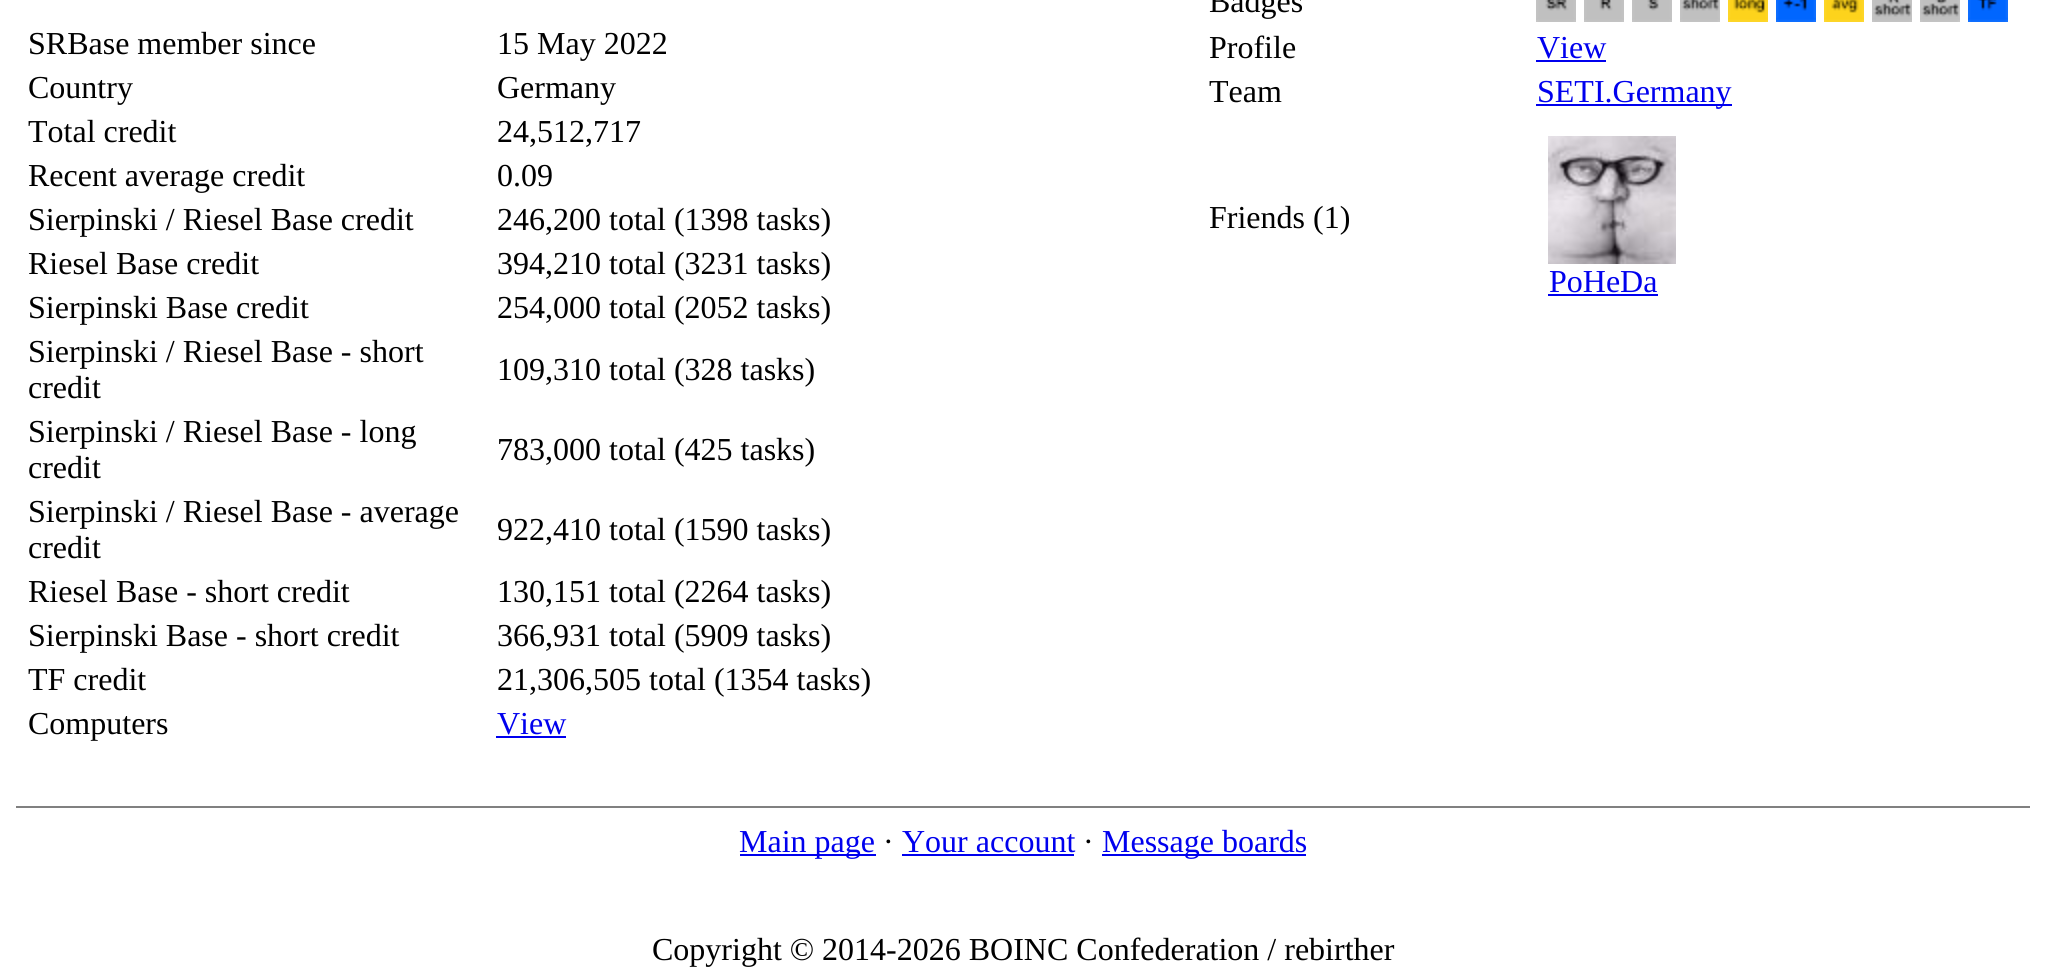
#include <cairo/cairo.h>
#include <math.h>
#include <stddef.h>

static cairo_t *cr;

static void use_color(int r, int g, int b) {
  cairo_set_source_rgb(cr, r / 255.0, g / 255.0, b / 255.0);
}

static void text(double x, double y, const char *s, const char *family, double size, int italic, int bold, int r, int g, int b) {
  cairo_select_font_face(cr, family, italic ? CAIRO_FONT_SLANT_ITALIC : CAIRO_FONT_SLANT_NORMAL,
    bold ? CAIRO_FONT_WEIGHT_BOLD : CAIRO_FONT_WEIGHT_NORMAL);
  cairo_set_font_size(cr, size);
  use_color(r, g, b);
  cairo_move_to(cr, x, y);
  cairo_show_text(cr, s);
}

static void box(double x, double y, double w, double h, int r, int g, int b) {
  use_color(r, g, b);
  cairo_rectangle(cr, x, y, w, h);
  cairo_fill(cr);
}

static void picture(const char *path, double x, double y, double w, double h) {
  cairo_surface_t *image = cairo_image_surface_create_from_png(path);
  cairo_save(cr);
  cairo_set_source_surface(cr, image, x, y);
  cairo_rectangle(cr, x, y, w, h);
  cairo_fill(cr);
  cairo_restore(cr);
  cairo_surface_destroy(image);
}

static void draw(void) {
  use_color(255, 255, 255);
  cairo_paint(cr);
  box(496, 736, 70, 2, 0, 0, 238);
  picture("img_01.png", 1536, 0, 40, 22);
  picture("img_02.png", 1584, 0, 40, 22);
  picture("img_03.png", 1632, 0, 40, 22);
  picture("img_04.png", 1680, 0, 40, 22);
  picture("img_05.png", 1728, 0, 40, 22);
  picture("img_06.png", 1776, 0, 40, 22);
  picture("img_07.png", 1824, 0, 40, 22);
  picture("img_08.png", 1872, 0, 40, 22);
  picture("img_09.png", 1920, 0, 40, 22);
  picture("img_10.png", 1968, 0, 40, 22);
  box(1536, 60, 70, 2, 0, 0, 238);
  box(1536, 104, 196, 2, 0, 0, 238);
  picture("img_11.png", 1548, 136, 128, 128);
  box(1548, 294, 110, 2, 0, 0, 238);
  box(16, 806, 2014, 2, 128, 128, 128);
  box(740, 854, 136, 2, 0, 0, 238);
  box(902, 854, 172, 2, 0, 0, 238);
  box(1102, 854, 204, 2, 0, 0, 238);
  text(28, 54, "SRBase member since", "Liberation Serif", 32, 0, 0, 0, 0, 0);
  text(497, 54, "15 May 2022", "Liberation Serif", 32, 0, 0, 0, 0, 0);
  text(28, 98, "Country", "Liberation Serif", 32, 0, 0, 0, 0, 0);
  text(497, 98, "Germany", "Liberation Serif", 32, 0, 0, 0, 0, 0);
  text(28, 142, "Total credit", "Liberation Serif", 32, 0, 0, 0, 0, 0);
  text(497, 142, "24,512,717", "Liberation Serif", 32, 0, 0, 0, 0, 0);
  text(28, 186, "Recent average credit", "Liberation Serif", 32, 0, 0, 0, 0, 0);
  text(497, 186, "0.09", "Liberation Serif", 32, 0, 0, 0, 0, 0);
  text(28, 230, "Sierpinski / Riesel Base credit", "Liberation Serif", 32, 0, 0, 0, 0, 0);
  text(497, 230, "246,200 total (1398 tasks)", "Liberation Serif", 32, 0, 0, 0, 0, 0);
  text(28, 274, "Riesel Base credit", "Liberation Serif", 32, 0, 0, 0, 0, 0);
  text(497, 274, "394,210 total (3231 tasks)", "Liberation Serif", 32, 0, 0, 0, 0, 0);
  text(28, 318, "Sierpinski Base credit", "Liberation Serif", 32, 0, 0, 0, 0, 0);
  text(497, 318, "254,000 total (2052 tasks)", "Liberation Serif", 32, 0, 0, 0, 0, 0);
  text(28, 362, "Sierpinski / Riesel Base - short", "Liberation Serif", 32, 0, 0, 0, 0, 0);
  text(28, 398, "credit", "Liberation Serif", 32, 0, 0, 0, 0, 0);
  text(497, 380, "109,310 total (328 tasks)", "Liberation Serif", 32, 0, 0, 0, 0, 0);
  text(28, 442, "Sierpinski / Riesel Base - long", "Liberation Serif", 32, 0, 0, 0, 0, 0);
  text(28, 478, "credit", "Liberation Serif", 32, 0, 0, 0, 0, 0);
  text(497, 460, "783,000 total (425 tasks)", "Liberation Serif", 32, 0, 0, 0, 0, 0);
  text(28, 522, "Sierpinski / Riesel Base - average", "Liberation Serif", 32, 0, 0, 0, 0, 0);
  text(28, 558, "credit", "Liberation Serif", 32, 0, 0, 0, 0, 0);
  text(497, 540, "922,410 total (1590 tasks)", "Liberation Serif", 32, 0, 0, 0, 0, 0);
  text(28, 602, "Riesel Base - short credit", "Liberation Serif", 32, 0, 0, 0, 0, 0);
  text(497, 602, "130,151 total (2264 tasks)", "Liberation Serif", 32, 0, 0, 0, 0, 0);
  text(28, 646, "Sierpinski Base - short credit", "Liberation Serif", 32, 0, 0, 0, 0, 0);
  text(497, 646, "366,931 total (5909 tasks)", "Liberation Serif", 32, 0, 0, 0, 0, 0);
  text(28, 690, "TF credit", "Liberation Serif", 32, 0, 0, 0, 0, 0);
  text(497, 690, "21,306,505 total (1354 tasks)", "Liberation Serif", 32, 0, 0, 0, 0, 0);
  text(28, 734, "Computers", "Liberation Serif", 32, 0, 0, 0, 0, 0);
  text(497, 734, "View", "Liberation Serif", 32, 0, 0, 0, 0, 238);
  text(1209, 12, "Badges", "Liberation Serif", 32, 0, 0, 0, 0, 0);
  text(1209, 58, "Profile", "Liberation Serif", 32, 0, 0, 0, 0, 0);
  text(1537, 58, "View", "Liberation Serif", 32, 0, 0, 0, 0, 238);
  text(1209, 102, "Team", "Liberation Serif", 32, 0, 0, 0, 0, 0);
  text(1537, 102, "SETI.Germany", "Liberation Serif", 32, 0, 0, 0, 0, 238);
  text(1209, 228, "Friends (1)", "Liberation Serif", 32, 0, 0, 0, 0, 0);
  text(1549, 292, "PoHeDa", "Liberation Serif", 32, 0, 0, 0, 0, 238);
  text(739, 852, "Main page", "Liberation Serif", 32, 0, 0, 0, 0, 238);
  text(883, 852, "·", "Liberation Serif", 32, 0, 0, 0, 0, 0);
  text(902, 852, "Your account", "Liberation Serif", 32, 0, 0, 0, 0, 238);
  text(1083, 852, "·", "Liberation Serif", 32, 0, 0, 0, 0, 0);
  text(1102, 852, "Message boards", "Liberation Serif", 32, 0, 0, 0, 0, 238);
  text(652, 960, "Copyright © 2014-2026 BOINC Confederation / rebirther", "Liberation Serif", 32, 0, 0, 0, 0, 0);
}

int main(void) {
  cairo_surface_t *surface = cairo_image_surface_create(CAIRO_FORMAT_RGB24, 2045, 967);
  cr = cairo_create(surface);
  cairo_font_options_t *options = cairo_font_options_create();
  cairo_font_options_set_hint_metrics(options, CAIRO_HINT_METRICS_OFF);
  cairo_font_options_set_hint_style(options, CAIRO_HINT_STYLE_NONE);
  cairo_set_font_options(cr, options);
  cairo_set_miter_limit(cr, 4);
  draw();
  cairo_surface_write_to_png(surface, "out.png");
  cairo_font_options_destroy(options);
  cairo_destroy(cr);
  cairo_surface_destroy(surface);
  return 0;
}
